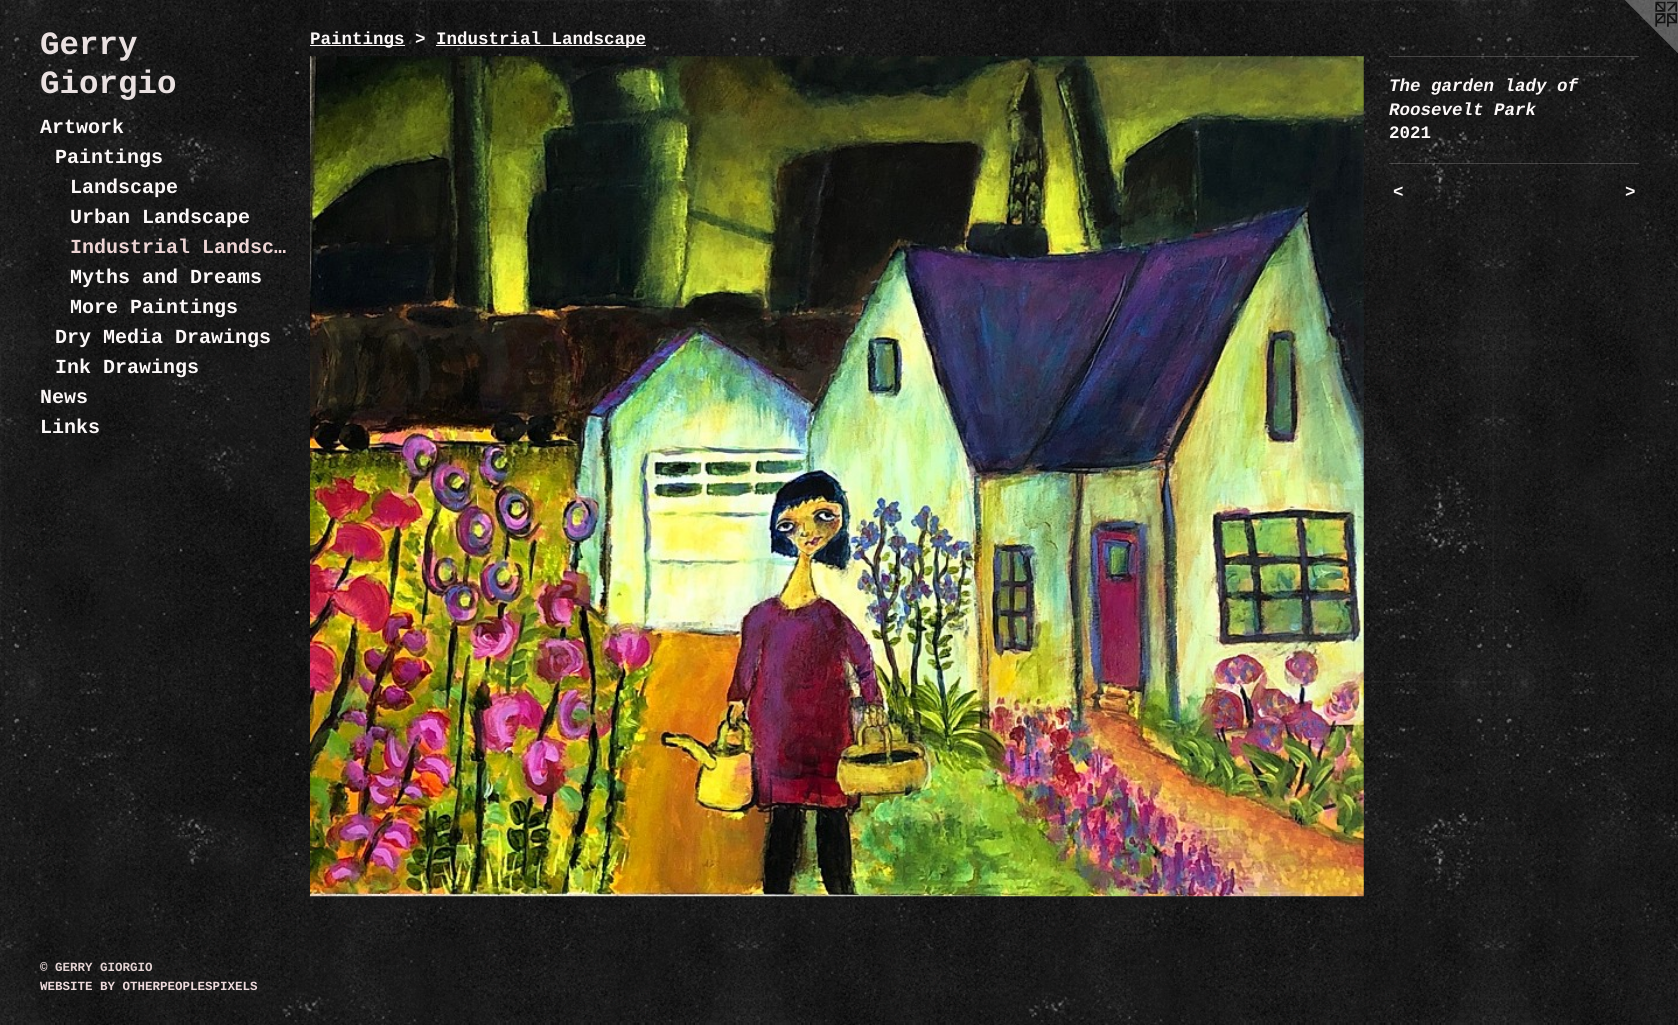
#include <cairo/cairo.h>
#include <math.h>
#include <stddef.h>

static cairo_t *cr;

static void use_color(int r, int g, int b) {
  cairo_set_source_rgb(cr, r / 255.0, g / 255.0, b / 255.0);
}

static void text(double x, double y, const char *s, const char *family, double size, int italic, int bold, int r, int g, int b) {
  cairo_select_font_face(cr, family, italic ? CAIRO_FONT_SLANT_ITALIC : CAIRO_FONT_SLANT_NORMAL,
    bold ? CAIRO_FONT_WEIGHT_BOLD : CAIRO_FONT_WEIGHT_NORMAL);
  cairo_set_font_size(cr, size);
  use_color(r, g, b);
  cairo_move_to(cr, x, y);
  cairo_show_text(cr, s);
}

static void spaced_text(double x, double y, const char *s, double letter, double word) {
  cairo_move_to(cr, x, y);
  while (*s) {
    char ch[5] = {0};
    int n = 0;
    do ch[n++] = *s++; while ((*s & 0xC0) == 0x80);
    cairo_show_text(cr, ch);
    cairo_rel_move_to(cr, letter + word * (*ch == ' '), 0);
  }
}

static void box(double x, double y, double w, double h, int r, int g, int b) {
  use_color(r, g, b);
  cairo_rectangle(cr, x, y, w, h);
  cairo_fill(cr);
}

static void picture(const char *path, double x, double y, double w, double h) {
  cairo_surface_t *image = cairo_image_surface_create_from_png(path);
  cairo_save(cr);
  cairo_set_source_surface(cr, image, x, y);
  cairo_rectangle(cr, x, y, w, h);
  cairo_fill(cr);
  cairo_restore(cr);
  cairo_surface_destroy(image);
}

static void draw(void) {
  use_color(255, 255, 255);
  cairo_paint(cr);
  picture("img_01.png", 0, 0, 1678, 1025);
  box(310, 45, 95, 1, 252, 248, 248);
  box(436, 45, 210, 1, 252, 248, 248);
  picture("img_02.png", 310, 56, 1054, 841);
  cairo_set_source_rgba(cr, 0.988, 0.973, 0.973, 0.2);
  cairo_rectangle(cr, 1389, 56, 250, 1);
  cairo_fill(cr);
  cairo_rectangle(cr, 1389, 163, 250, 1);
  cairo_fill(cr);
  picture("img_03.png", 1625, 0, 53, 53);
  text(40, 54, "Gerry", "Liberation Mono", 32.5, 0, 1, 234, 225, 225);
  text(40, 93, "Giorgio", "Liberation Mono", 32.5, 0, 1, 234, 225, 225);
  text(40, 133, "Artwork", "Liberation Mono", 20, 0, 1, 252, 248, 248);
  text(55, 163, "Paintings", "Liberation Mono", 20, 0, 1, 252, 248, 248);
  text(70, 193, "Landscape", "Liberation Mono", 20, 0, 1, 252, 248, 248);
  text(70, 223, "Urban Landscape", "Liberation Mono", 20, 0, 1, 252, 248, 248);
  text(70, 253, "Industrial Landsc…", "Liberation Mono", 20, 0, 1, 237, 212, 212);
  text(70, 283, "Myths and Dreams", "Liberation Mono", 20, 0, 1, 252, 248, 248);
  text(70, 313, "More Paintings", "Liberation Mono", 20, 0, 1, 252, 248, 248);
  text(55, 343, "Dry Media Drawings", "Liberation Mono", 20, 0, 1, 252, 248, 248);
  text(55, 373, "Ink Drawings", "Liberation Mono", 20, 0, 1, 252, 248, 248);
  text(40, 403, "News", "Liberation Mono", 20, 0, 1, 252, 248, 248);
  text(40, 433, "Links", "Liberation Mono", 20, 0, 1, 252, 248, 248);
  text(40, 971, "© GERRY GIORGIO", "Liberation Mono", 12.5, 0, 1, 228, 211, 211);
  text(40, 990, "WEBSITE BY OTHERPEOPLESPIXELS", "Liberation Mono", 12.5, 0, 1, 237, 217, 219);
  text(310, 44, "Paintings >", "Liberation Mono", 17.5, 0, 1, 252, 248, 248);
  text(436, 44, "Industrial Landscape", "Liberation Mono", 17.5, 0, 1, 252, 248, 248);
  text(1389, 91, "The garden lady of", "Liberation Mono", 17.5, 1, 1, 252, 248, 248);
  text(1389, 115, "Roosevelt Park", "Liberation Mono", 17.5, 1, 1, 252, 248, 248);
  text(1389, 138, "2021", "Liberation Mono", 17.5, 0, 1, 252, 248, 248);
  cairo_select_font_face(cr, "Liberation Mono", CAIRO_FONT_SLANT_ITALIC, CAIRO_FONT_WEIGHT_BOLD);
  spaced_text(1393, 197, "<", 1, 0);
  spaced_text(1625, 197, ">", 1, 0);
}

int main(void) {
  cairo_surface_t *surface = cairo_image_surface_create(CAIRO_FORMAT_RGB24, 1678, 1025);
  cr = cairo_create(surface);
  cairo_font_options_t *options = cairo_font_options_create();
  cairo_font_options_set_hint_metrics(options, CAIRO_HINT_METRICS_OFF);
  cairo_font_options_set_hint_style(options, CAIRO_HINT_STYLE_NONE);
  cairo_set_font_options(cr, options);
  cairo_set_miter_limit(cr, 4);
  draw();
  cairo_surface_write_to_png(surface, "out.png");
  cairo_font_options_destroy(options);
  cairo_destroy(cr);
  cairo_surface_destroy(surface);
  return 0;
}
